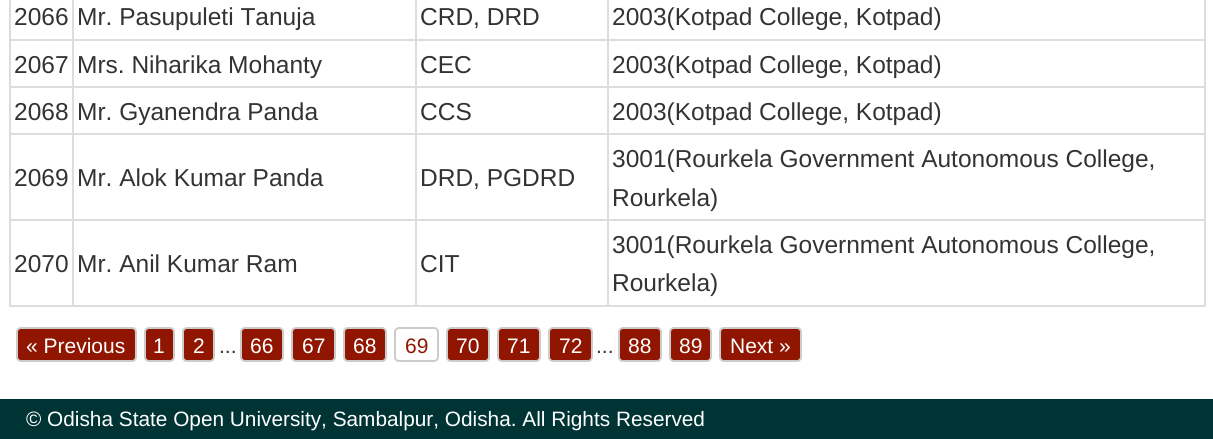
#include <cairo/cairo.h>
#include <math.h>
#include <stddef.h>

static cairo_t *cr;

static void use_color(int r, int g, int b) {
  cairo_set_source_rgb(cr, r / 255.0, g / 255.0, b / 255.0);
}

static void text(double x, double y, const char *s, const char *family, double size, int italic, int bold, int r, int g, int b) {
  cairo_select_font_face(cr, family, italic ? CAIRO_FONT_SLANT_ITALIC : CAIRO_FONT_SLANT_NORMAL,
    bold ? CAIRO_FONT_WEIGHT_BOLD : CAIRO_FONT_WEIGHT_NORMAL);
  cairo_set_font_size(cr, size);
  use_color(r, g, b);
  cairo_move_to(cr, x, y);
  cairo_show_text(cr, s);
}

static void box(double x, double y, double w, double h, int r, int g, int b) {
  use_color(r, g, b);
  cairo_rectangle(cr, x, y, w, h);
  cairo_fill(cr);
}

static void round_rect(double x, double y, double w, double h, double r) {
  cairo_new_sub_path(cr);
  cairo_arc(cr, x + w - r, y + h - r, r, 0, M_PI / 2);
  cairo_arc(cr, x + r, y + h - r, r, M_PI / 2, M_PI);
  cairo_arc(cr, x + r, y + r, r, M_PI, 1.5 * M_PI);
  cairo_arc(cr, x + w - r, y + r, r, 1.5 * M_PI, 2 * M_PI);
  cairo_close_path(cr);
}

static void draw(void) {
  use_color(255, 255, 255);
  cairo_paint(cr);
  box(1204, 0, 2, 306, 221, 221, 221);
  box(9, 305, 1197, 2, 221, 221, 221);
  box(9, 0, 2, 306, 221, 221, 221);
  box(607, 39, 599, 2, 221, 221, 221);
  box(607, 86, 599, 2, 221, 221, 221);
  box(607, 133, 599, 2, 221, 221, 221);
  box(607, 219, 599, 2, 221, 221, 221);
  box(607, 219, 2, 87, 221, 221, 221);
  box(415, 219, 194, 2, 221, 221, 221);
  box(607, 133, 2, 88, 221, 221, 221);
  box(415, 133, 194, 2, 221, 221, 221);
  box(607, 86, 2, 49, 221, 221, 221);
  box(415, 86, 194, 2, 221, 221, 221);
  box(607, 39, 2, 49, 221, 221, 221);
  box(415, 39, 194, 2, 221, 221, 221);
  box(415, 219, 2, 87, 221, 221, 221);
  box(72, 219, 345, 2, 221, 221, 221);
  box(415, 133, 2, 88, 221, 221, 221);
  box(72, 133, 345, 2, 221, 221, 221);
  box(415, 86, 2, 49, 221, 221, 221);
  box(72, 86, 345, 2, 221, 221, 221);
  box(415, 39, 2, 49, 221, 221, 221);
  box(72, 39, 345, 2, 221, 221, 221);
  box(72, 219, 2, 87, 221, 221, 221);
  box(9, 219, 65, 2, 221, 221, 221);
  box(72, 133, 2, 88, 221, 221, 221);
  box(9, 133, 65, 2, 221, 221, 221);
  box(72, 86, 2, 49, 221, 221, 221);
  box(9, 86, 65, 2, 221, 221, 221);
  box(72, 39, 2, 49, 221, 221, 221);
  box(9, 39, 65, 2, 221, 221, 221);
  box(72, 0, 2, 40, 221, 221, 221);
  box(415, 0, 2, 40, 221, 221, 221);
  box(607, 0, 2, 40, 221, 221, 221);
  use_color(145, 22, 2);
  round_rect(17, 328, 119, 33, 4);
  cairo_fill_preserve(cr);
  use_color(204, 204, 204);
  cairo_stroke(cr);
  use_color(145, 22, 2);
  round_rect(145, 328, 29, 33, 4);
  cairo_fill_preserve(cr);
  use_color(204, 204, 204);
  cairo_stroke(cr);
  use_color(145, 22, 2);
  round_rect(183, 328, 31, 33, 4);
  cairo_fill_preserve(cr);
  use_color(204, 204, 204);
  cairo_stroke(cr);
  use_color(145, 22, 2);
  round_rect(241, 328, 42, 33, 4);
  cairo_fill_preserve(cr);
  use_color(204, 204, 204);
  cairo_stroke(cr);
  use_color(145, 22, 2);
  round_rect(292, 328, 43, 33, 4);
  cairo_fill_preserve(cr);
  use_color(204, 204, 204);
  cairo_stroke(cr);
  use_color(145, 22, 2);
  round_rect(344, 328, 42, 33, 4);
  cairo_fill_preserve(cr);
  use_color(204, 204, 204);
  cairo_stroke(cr);
  round_rect(395, 328, 43, 33, 4);
  cairo_stroke(cr);
  use_color(145, 22, 2);
  round_rect(447, 328, 42, 33, 4);
  cairo_fill_preserve(cr);
  use_color(204, 204, 204);
  cairo_stroke(cr);
  use_color(145, 22, 2);
  round_rect(498, 328, 42, 33, 4);
  cairo_fill_preserve(cr);
  use_color(204, 204, 204);
  cairo_stroke(cr);
  use_color(145, 22, 2);
  round_rect(549, 328, 43, 33, 4);
  cairo_fill_preserve(cr);
  use_color(204, 204, 204);
  cairo_stroke(cr);
  use_color(145, 22, 2);
  round_rect(619, 328, 42, 33, 4);
  cairo_fill_preserve(cr);
  use_color(204, 204, 204);
  cairo_stroke(cr);
  use_color(145, 22, 2);
  round_rect(670, 328, 41, 33, 4);
  cairo_fill_preserve(cr);
  use_color(204, 204, 204);
  cairo_stroke(cr);
  use_color(145, 22, 2);
  round_rect(720, 328, 81, 33, 4);
  cairo_fill_preserve(cr);
  use_color(204, 204, 204);
  cairo_stroke(cr);
  box(0, 399, 1213, 40, 0, 51, 51);
  text(14, 25, "2066", "Liberation Sans", 24.5, 0, 0, 51, 51, 51);
  text(77, 25, "Mr. Pasupuleti Tanuja", "Liberation Sans", 24.5, 0, 0, 51, 51, 51);
  text(420, 25, "CRD, DRD", "Liberation Sans", 24.5, 0, 0, 51, 51, 51);
  text(612, 25, "2003(Kotpad College, Kotpad)", "Liberation Sans", 24.5, 0, 0, 51, 51, 51);
  text(14, 73, "2067", "Liberation Sans", 24.5, 0, 0, 51, 51, 51);
  text(77, 73, "Mrs. Niharika Mohanty", "Liberation Sans", 24.5, 0, 0, 51, 51, 51);
  text(420, 73, "CEC", "Liberation Sans", 24.5, 0, 0, 51, 51, 51);
  text(612, 73, "2003(Kotpad College, Kotpad)", "Liberation Sans", 24.5, 0, 0, 51, 51, 51);
  text(14, 120, "2068", "Liberation Sans", 24.5, 0, 0, 51, 51, 51);
  text(77, 120, "Mr. Gyanendra Panda", "Liberation Sans", 24.5, 0, 0, 51, 51, 51);
  text(420, 120, "CCS", "Liberation Sans", 24.5, 0, 0, 51, 51, 51);
  text(612, 120, "2003(Kotpad College, Kotpad)", "Liberation Sans", 24.5, 0, 0, 51, 51, 51);
  text(14, 186, "2069", "Liberation Sans", 24.5, 0, 0, 51, 51, 51);
  text(77, 186, "Mr. Alok Kumar Panda", "Liberation Sans", 24.5, 0, 0, 51, 51, 51);
  text(420, 186, "DRD, PGDRD", "Liberation Sans", 24.5, 0, 0, 51, 51, 51);
  text(612, 167, "3001(Rourkela Government Autonomous College,", "Liberation Sans", 24.5, 0, 0, 51, 51, 51);
  text(612, 206, "Rourkela)", "Liberation Sans", 24.5, 0, 0, 51, 51, 51);
  text(14, 272, "2070", "Liberation Sans", 24.5, 0, 0, 51, 51, 51);
  text(77, 272, "Mr. Anil Kumar Ram", "Liberation Sans", 24.5, 0, 0, 51, 51, 51);
  text(420, 272, "CIT", "Liberation Sans", 24.5, 0, 0, 51, 51, 51);
  text(612, 253, "3001(Rourkela Government Autonomous College,", "Liberation Sans", 24.5, 0, 0, 51, 51, 51);
  text(612, 291, "Rourkela)", "Liberation Sans", 24.5, 0, 0, 51, 51, 51);
  text(26, 353, "« Previous", "Liberation Sans", 21, 0, 0, 255, 255, 255);
  text(153, 353, "1", "Liberation Sans", 21, 0, 0, 255, 255, 255);
  text(193, 353, "2", "Liberation Sans", 21, 0, 0, 255, 255, 255);
  text(219, 353, "...", "Liberation Sans", 21, 0, 0, 51, 51, 51);
  text(250, 353, "66", "Liberation Sans", 21, 0, 0, 255, 255, 255);
  text(302, 353, "67", "Liberation Sans", 21, 0, 0, 255, 255, 255);
  text(353, 353, "68", "Liberation Sans", 21, 0, 0, 255, 255, 255);
  text(405, 353, "69", "Liberation Sans", 21, 0, 0, 145, 22, 2);
  text(456, 353, "70", "Liberation Sans", 21, 0, 0, 255, 255, 255);
  text(507, 353, "71", "Liberation Sans", 21, 0, 0, 255, 255, 255);
  text(559, 353, "72", "Liberation Sans", 21, 0, 0, 255, 255, 255);
  text(596, 353, "...", "Liberation Sans", 21, 0, 0, 51, 51, 51);
  text(628, 353, "88", "Liberation Sans", 21, 0, 0, 255, 255, 255);
  text(679, 353, "89", "Liberation Sans", 21, 0, 0, 255, 255, 255);
  text(730, 353, "Next »", "Liberation Sans", 21, 0, 0, 255, 255, 255);
  text(26, 426, "© Odisha State Open University, Sambalpur, Odisha. All Rights Reserved", "Liberation Sans", 20.8, 0, 0, 255, 255, 255);
}

int main(void) {
  cairo_surface_t *surface = cairo_image_surface_create(CAIRO_FORMAT_RGB24, 1213, 439);
  cr = cairo_create(surface);
  cairo_font_options_t *options = cairo_font_options_create();
  cairo_font_options_set_hint_metrics(options, CAIRO_HINT_METRICS_OFF);
  cairo_font_options_set_hint_style(options, CAIRO_HINT_STYLE_NONE);
  cairo_set_font_options(cr, options);
  cairo_set_miter_limit(cr, 4);
  draw();
  cairo_surface_write_to_png(surface, "out.png");
  cairo_font_options_destroy(options);
  cairo_destroy(cr);
  cairo_surface_destroy(surface);
  return 0;
}
